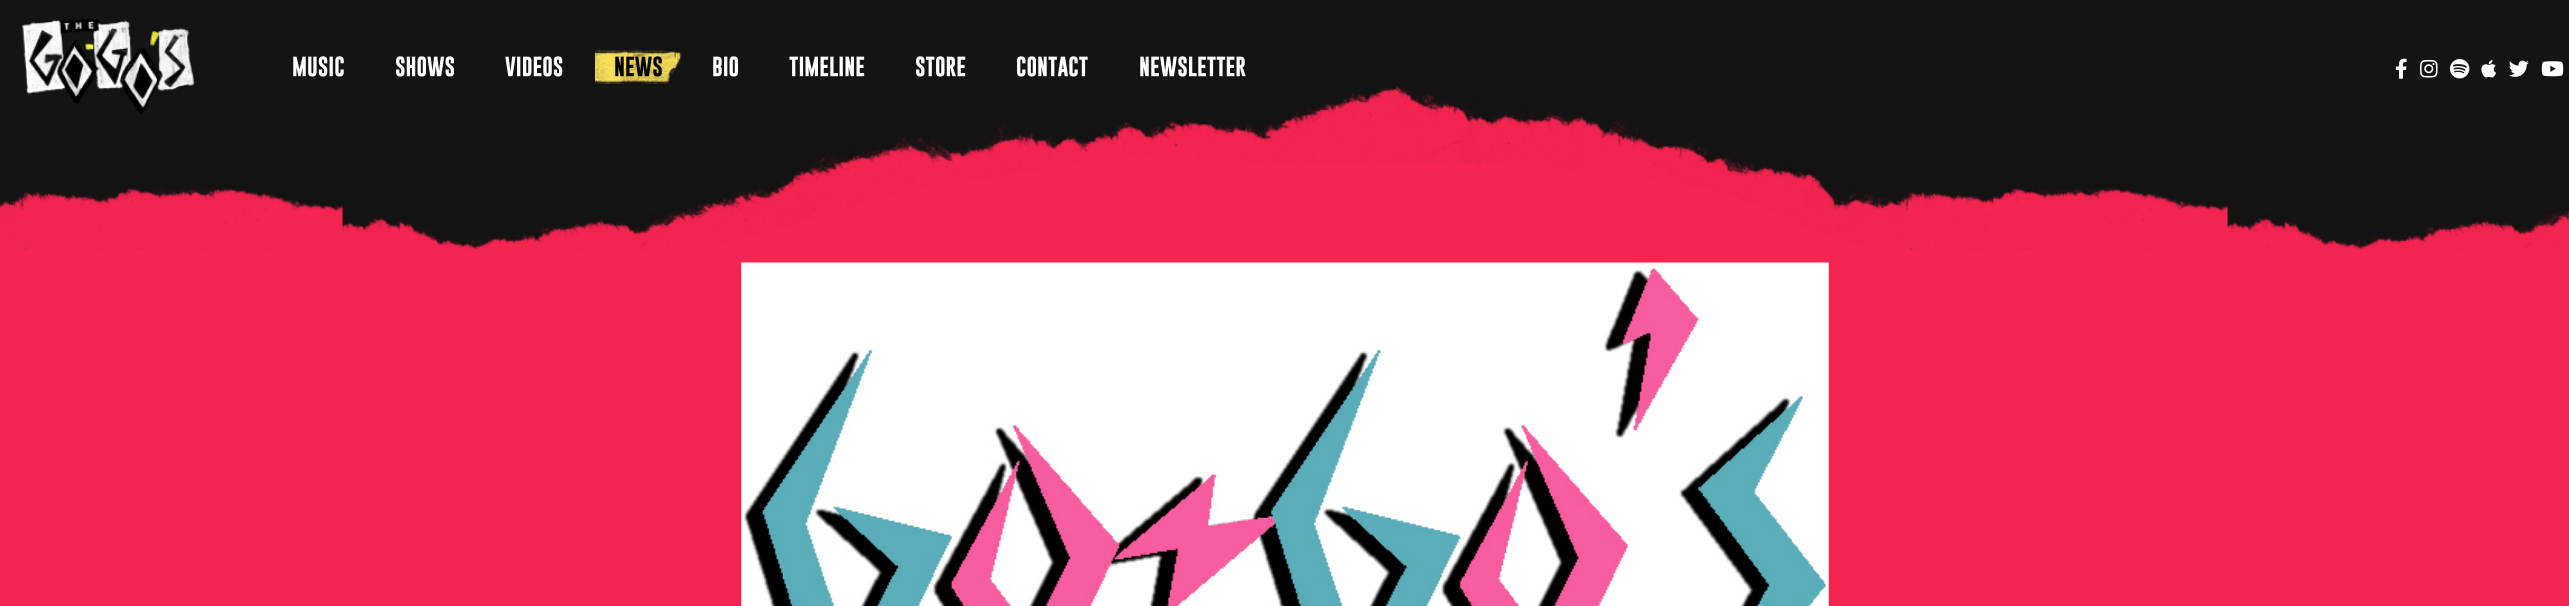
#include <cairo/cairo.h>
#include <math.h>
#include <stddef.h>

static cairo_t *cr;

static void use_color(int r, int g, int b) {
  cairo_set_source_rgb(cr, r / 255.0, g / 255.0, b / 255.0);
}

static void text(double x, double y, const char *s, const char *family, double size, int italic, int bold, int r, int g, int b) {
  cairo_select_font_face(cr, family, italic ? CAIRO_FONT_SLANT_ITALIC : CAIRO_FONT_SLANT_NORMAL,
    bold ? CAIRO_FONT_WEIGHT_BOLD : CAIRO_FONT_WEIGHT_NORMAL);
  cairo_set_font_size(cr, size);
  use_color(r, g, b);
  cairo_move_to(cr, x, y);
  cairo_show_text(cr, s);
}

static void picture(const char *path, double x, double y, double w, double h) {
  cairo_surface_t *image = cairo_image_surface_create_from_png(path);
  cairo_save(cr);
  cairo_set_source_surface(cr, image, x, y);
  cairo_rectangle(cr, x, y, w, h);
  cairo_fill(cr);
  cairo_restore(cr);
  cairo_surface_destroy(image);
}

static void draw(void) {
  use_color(245, 36, 80);
  cairo_paint(cr);
  picture("img_01.png", 0, 0, 2569, 250);
  picture("img_02.png", 22, 19, 173, 95);
  picture("img_03.png", 595, 50, 87, 34);
  picture("img_04.png", 2395, 58, 12, 21);
  picture("img_05.png", 2420, 60, 18, 18);
  picture("img_06.png", 2450, 59, 20, 20);
  picture("img_07.png", 2481, 60, 15, 18);
  picture("img_08.png", 2509, 60, 20, 17);
  picture("img_09.png", 2541, 61, 23, 16);
  picture("img_10.png", 741, 262, 1088, 344);
  text(292, 76, "MUSIC", "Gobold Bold", 20, 0, 1, 255, 255, 255);
  text(395, 76, "SHOWS", "Gobold Bold", 20, 0, 1, 255, 255, 255);
  text(505, 76, "VIDEOS", "Gobold Bold", 20, 0, 1, 255, 255, 255);
  text(614, 76, "NEWS", "Gobold Bold", 20, 0, 1, 0, 0, 0);
  text(712, 76, "BIO", "Gobold Bold", 20, 0, 1, 255, 255, 255);
  text(789, 76, "TIMELINE", "Gobold Bold", 20, 0, 1, 255, 255, 255);
  text(915, 76, "STORE", "Gobold Bold", 20, 0, 1, 255, 255, 255);
  text(1016, 76, "CONTACT", "Gobold Bold", 20, 0, 1, 255, 255, 255);
  text(1139, 76, "NEWSLETTER", "Gobold Bold", 20, 0, 1, 255, 255, 255);
}

int main(void) {
  cairo_surface_t *surface = cairo_image_surface_create(CAIRO_FORMAT_RGB24, 2569, 606);
  cr = cairo_create(surface);
  cairo_font_options_t *options = cairo_font_options_create();
  cairo_font_options_set_hint_metrics(options, CAIRO_HINT_METRICS_OFF);
  cairo_font_options_set_hint_style(options, CAIRO_HINT_STYLE_NONE);
  cairo_set_font_options(cr, options);
  cairo_set_miter_limit(cr, 4);
  draw();
  cairo_surface_write_to_png(surface, "out.png");
  cairo_font_options_destroy(options);
  cairo_destroy(cr);
  cairo_surface_destroy(surface);
  return 0;
}
